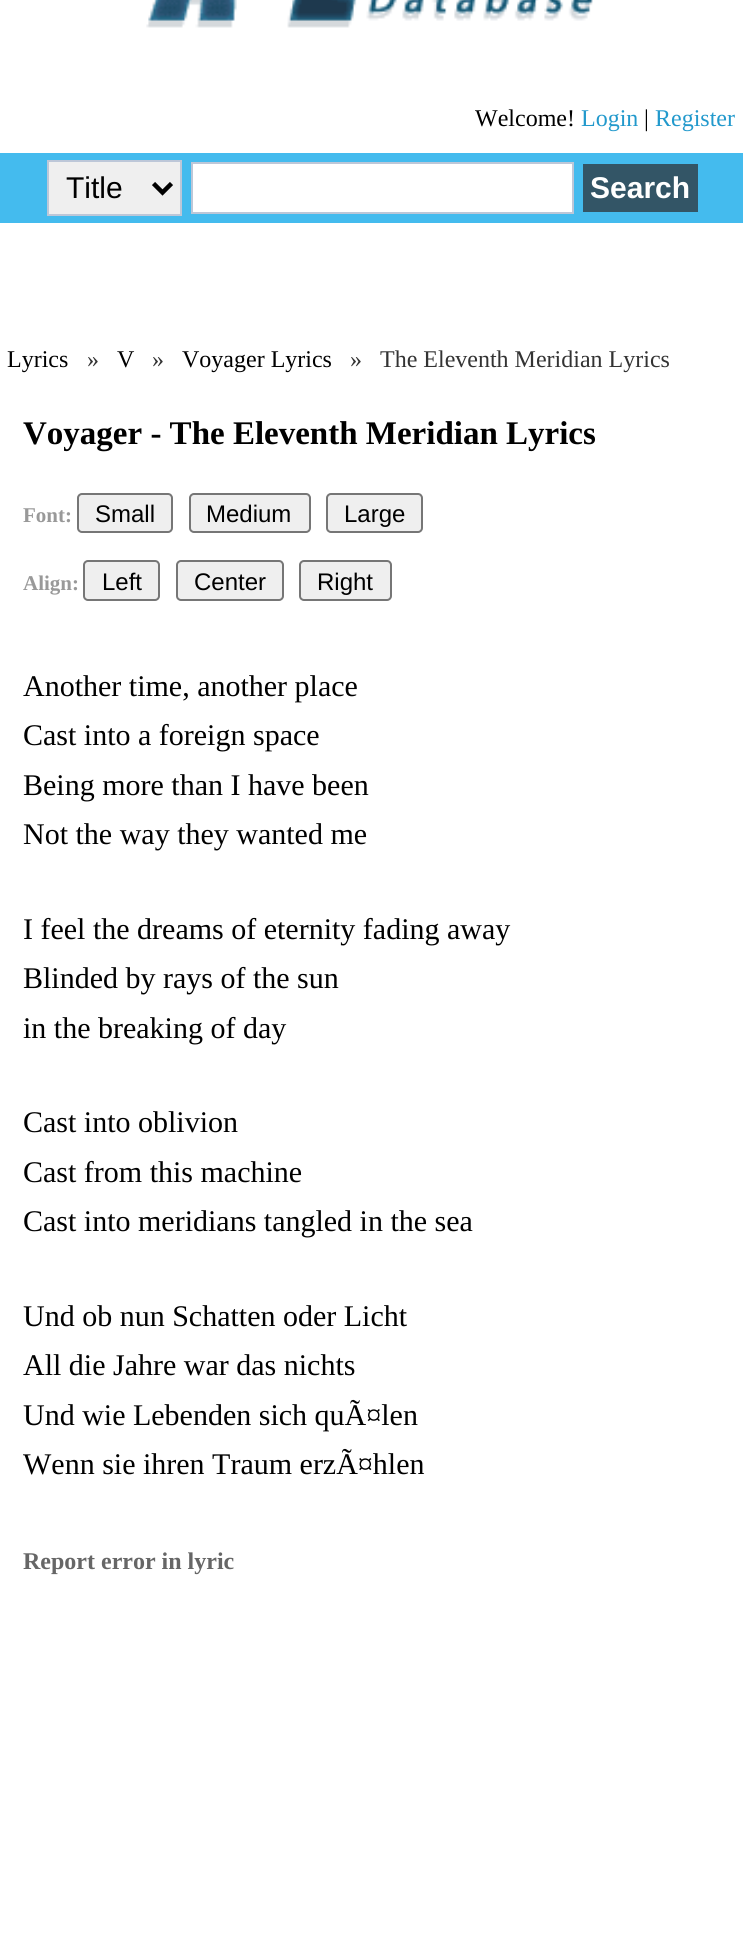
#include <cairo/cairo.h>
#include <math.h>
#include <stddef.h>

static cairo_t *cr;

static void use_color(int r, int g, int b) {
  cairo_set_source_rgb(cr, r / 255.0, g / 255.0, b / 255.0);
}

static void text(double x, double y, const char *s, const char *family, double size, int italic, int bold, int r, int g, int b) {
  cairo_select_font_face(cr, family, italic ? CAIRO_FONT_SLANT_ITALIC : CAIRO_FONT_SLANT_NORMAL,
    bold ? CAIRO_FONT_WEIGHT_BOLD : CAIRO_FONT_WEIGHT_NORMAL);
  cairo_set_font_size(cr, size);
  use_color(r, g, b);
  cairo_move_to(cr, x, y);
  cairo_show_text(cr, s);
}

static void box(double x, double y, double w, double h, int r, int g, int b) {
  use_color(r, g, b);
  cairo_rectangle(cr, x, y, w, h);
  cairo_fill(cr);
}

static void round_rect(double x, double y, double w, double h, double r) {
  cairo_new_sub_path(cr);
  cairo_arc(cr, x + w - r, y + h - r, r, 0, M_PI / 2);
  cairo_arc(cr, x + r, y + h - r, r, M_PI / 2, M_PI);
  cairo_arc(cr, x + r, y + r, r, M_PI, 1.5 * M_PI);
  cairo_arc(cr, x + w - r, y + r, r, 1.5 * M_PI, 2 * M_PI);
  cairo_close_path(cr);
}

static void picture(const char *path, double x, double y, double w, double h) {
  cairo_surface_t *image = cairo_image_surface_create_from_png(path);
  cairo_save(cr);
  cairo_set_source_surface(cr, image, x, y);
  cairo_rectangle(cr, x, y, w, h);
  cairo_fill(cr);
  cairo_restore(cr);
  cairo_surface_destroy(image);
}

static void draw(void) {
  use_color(255, 255, 255);
  cairo_paint(cr);
  picture("img_01.png", 146, 0, 447, 28);
  box(0, 153, 743, 70, 68, 187, 238);
  use_color(239, 239, 239);
  cairo_rectangle(cr, 48, 161, 133, 54);
  cairo_fill_preserve(cr);
  use_color(189, 199, 216);
  cairo_stroke(cr);
  cairo_new_path(cr);
  cairo_move_to(cr, 153.5, 183.5);
  cairo_line_to(cr, 162.5, 192.5);
  cairo_line_to(cr, 171.5, 183.5);
  use_color(0, 0, 0);
  cairo_set_line_width(cr, 4.5);
  cairo_stroke(cr);
  use_color(255, 255, 255);
  cairo_rectangle(cr, 192, 163, 381, 50);
  cairo_fill_preserve(cr);
  use_color(189, 199, 216);
  cairo_set_line_width(cr, 2);
  cairo_stroke(cr);
  box(583, 164, 115, 48, 51, 85, 102);
  use_color(239, 239, 239);
  round_rect(78, 494, 94, 38, 4);
  cairo_fill_preserve(cr);
  use_color(118, 118, 118);
  cairo_stroke(cr);
  use_color(239, 239, 239);
  round_rect(190, 494, 120, 38, 4);
  cairo_fill_preserve(cr);
  use_color(118, 118, 118);
  cairo_stroke(cr);
  use_color(239, 239, 239);
  round_rect(327, 494, 95, 38, 4);
  cairo_fill_preserve(cr);
  use_color(118, 118, 118);
  cairo_stroke(cr);
  use_color(239, 239, 239);
  round_rect(84, 561, 75, 39, 4);
  cairo_fill_preserve(cr);
  use_color(118, 118, 118);
  cairo_stroke(cr);
  use_color(239, 239, 239);
  round_rect(177, 561, 106, 39, 4);
  cairo_fill_preserve(cr);
  use_color(118, 118, 118);
  cairo_stroke(cr);
  use_color(239, 239, 239);
  round_rect(300, 561, 91, 39, 4);
  cairo_fill_preserve(cr);
  use_color(118, 118, 118);
  cairo_stroke(cr);
  text(475, 126, "Welcome!", "Liberation Serif", 24, 0, 0, 0, 0, 0);
  text(581, 126, "Login", "Liberation Serif", 24, 0, 0, 34, 153, 204);
  text(644, 126, "|", "Liberation Serif", 24, 0, 0, 0, 0, 0);
  text(655, 126, "Register", "Liberation Serif", 24, 0, 0, 34, 153, 204);
  text(66, 198, "Title", "Liberation Sans", 30, 0, 0, 0, 0, 0);
  text(590, 198, "Search", "Liberation Sans", 30, 0, 1, 255, 255, 255);
  text(7, 367, "Lyrics", "Liberation Serif", 24, 0, 0, 0, 0, 0);
  text(87, 367, "»", "Liberation Serif", 24, 0, 0, 51, 51, 51);
  text(117, 367, "V", "Liberation Serif", 24, 0, 0, 0, 0, 0);
  text(152, 367, "»", "Liberation Serif", 24, 0, 0, 51, 51, 51);
  text(182, 367, "Voyager Lyrics", "Liberation Serif", 24, 0, 0, 0, 0, 0);
  text(350, 367, "»   The Eleventh Meridian Lyrics", "Liberation Serif", 24, 0, 0, 51, 51, 51);
  text(23, 444, "Voyager - The Eleventh Meridian Lyrics", "Liberation Serif", 33, 0, 1, 0, 0, 0);
  text(23, 522, "Font:", "Liberation Serif", 21, 0, 1, 153, 153, 153);
  text(95, 522, "Small", "Liberation Sans", 24, 0, 0, 0, 0, 0);
  text(206, 522, "Medium", "Liberation Sans", 24, 0, 0, 0, 0, 0);
  text(344, 522, "Large", "Liberation Sans", 24, 0, 0, 0, 0, 0);
  text(23, 590, "Align:", "Liberation Serif", 21, 0, 1, 153, 153, 153);
  text(102, 590, "Left", "Liberation Sans", 24, 0, 0, 0, 0, 0);
  text(194, 590, "Center", "Liberation Sans", 24, 0, 0, 0, 0, 0);
  text(317, 590, "Right", "Liberation Sans", 24, 0, 0, 0, 0, 0);
  text(23, 696, "Another time, another place", "Liberation Serif", 30, 0, 0, 0, 0, 0);
  text(23, 745, "Cast into a foreign space", "Liberation Serif", 30, 0, 0, 0, 0, 0);
  text(23, 795, "Being more than I have been", "Liberation Serif", 30, 0, 0, 0, 0, 0);
  text(23, 844, "Not the way they wanted me", "Liberation Serif", 30, 0, 0, 0, 0, 0);
  text(23, 939, "I feel the dreams of eternity fading away", "Liberation Serif", 30, 0, 0, 0, 0, 0);
  text(23, 988, "Blinded by rays of the sun", "Liberation Serif", 30, 0, 0, 0, 0, 0);
  text(23, 1038, "in the breaking of day", "Liberation Serif", 30, 0, 0, 0, 0, 0);
  text(23, 1132, "Cast into oblivion", "Liberation Serif", 30, 0, 0, 0, 0, 0);
  text(23, 1182, "Cast from this machine", "Liberation Serif", 30, 0, 0, 0, 0, 0);
  text(23, 1231, "Cast into meridians tangled in the sea", "Liberation Serif", 30, 0, 0, 0, 0, 0);
  text(23, 1326, "Und ob nun Schatten oder Licht", "Liberation Serif", 30, 0, 0, 0, 0, 0);
  text(23, 1375, "All die Jahre war das nichts", "Liberation Serif", 30, 0, 0, 0, 0, 0);
  text(23, 1425, "Und wie Lebenden sich quÃ¤len", "Liberation Serif", 30, 0, 0, 0, 0, 0);
  text(23, 1474, "Wenn sie ihren Traum erzÃ¤hlen", "Liberation Serif", 30, 0, 0, 0, 0, 0);
  text(23, 1569, "Report error in lyric", "Liberation Serif", 24, 0, 1, 102, 102, 102);
}

int main(void) {
  cairo_surface_t *surface = cairo_image_surface_create(CAIRO_FORMAT_RGB24, 743, 1947);
  cr = cairo_create(surface);
  cairo_font_options_t *options = cairo_font_options_create();
  cairo_font_options_set_hint_metrics(options, CAIRO_HINT_METRICS_OFF);
  cairo_font_options_set_hint_style(options, CAIRO_HINT_STYLE_NONE);
  cairo_set_font_options(cr, options);
  cairo_set_miter_limit(cr, 4);
  draw();
  cairo_surface_write_to_png(surface, "out.png");
  cairo_font_options_destroy(options);
  cairo_destroy(cr);
  cairo_surface_destroy(surface);
  return 0;
}
